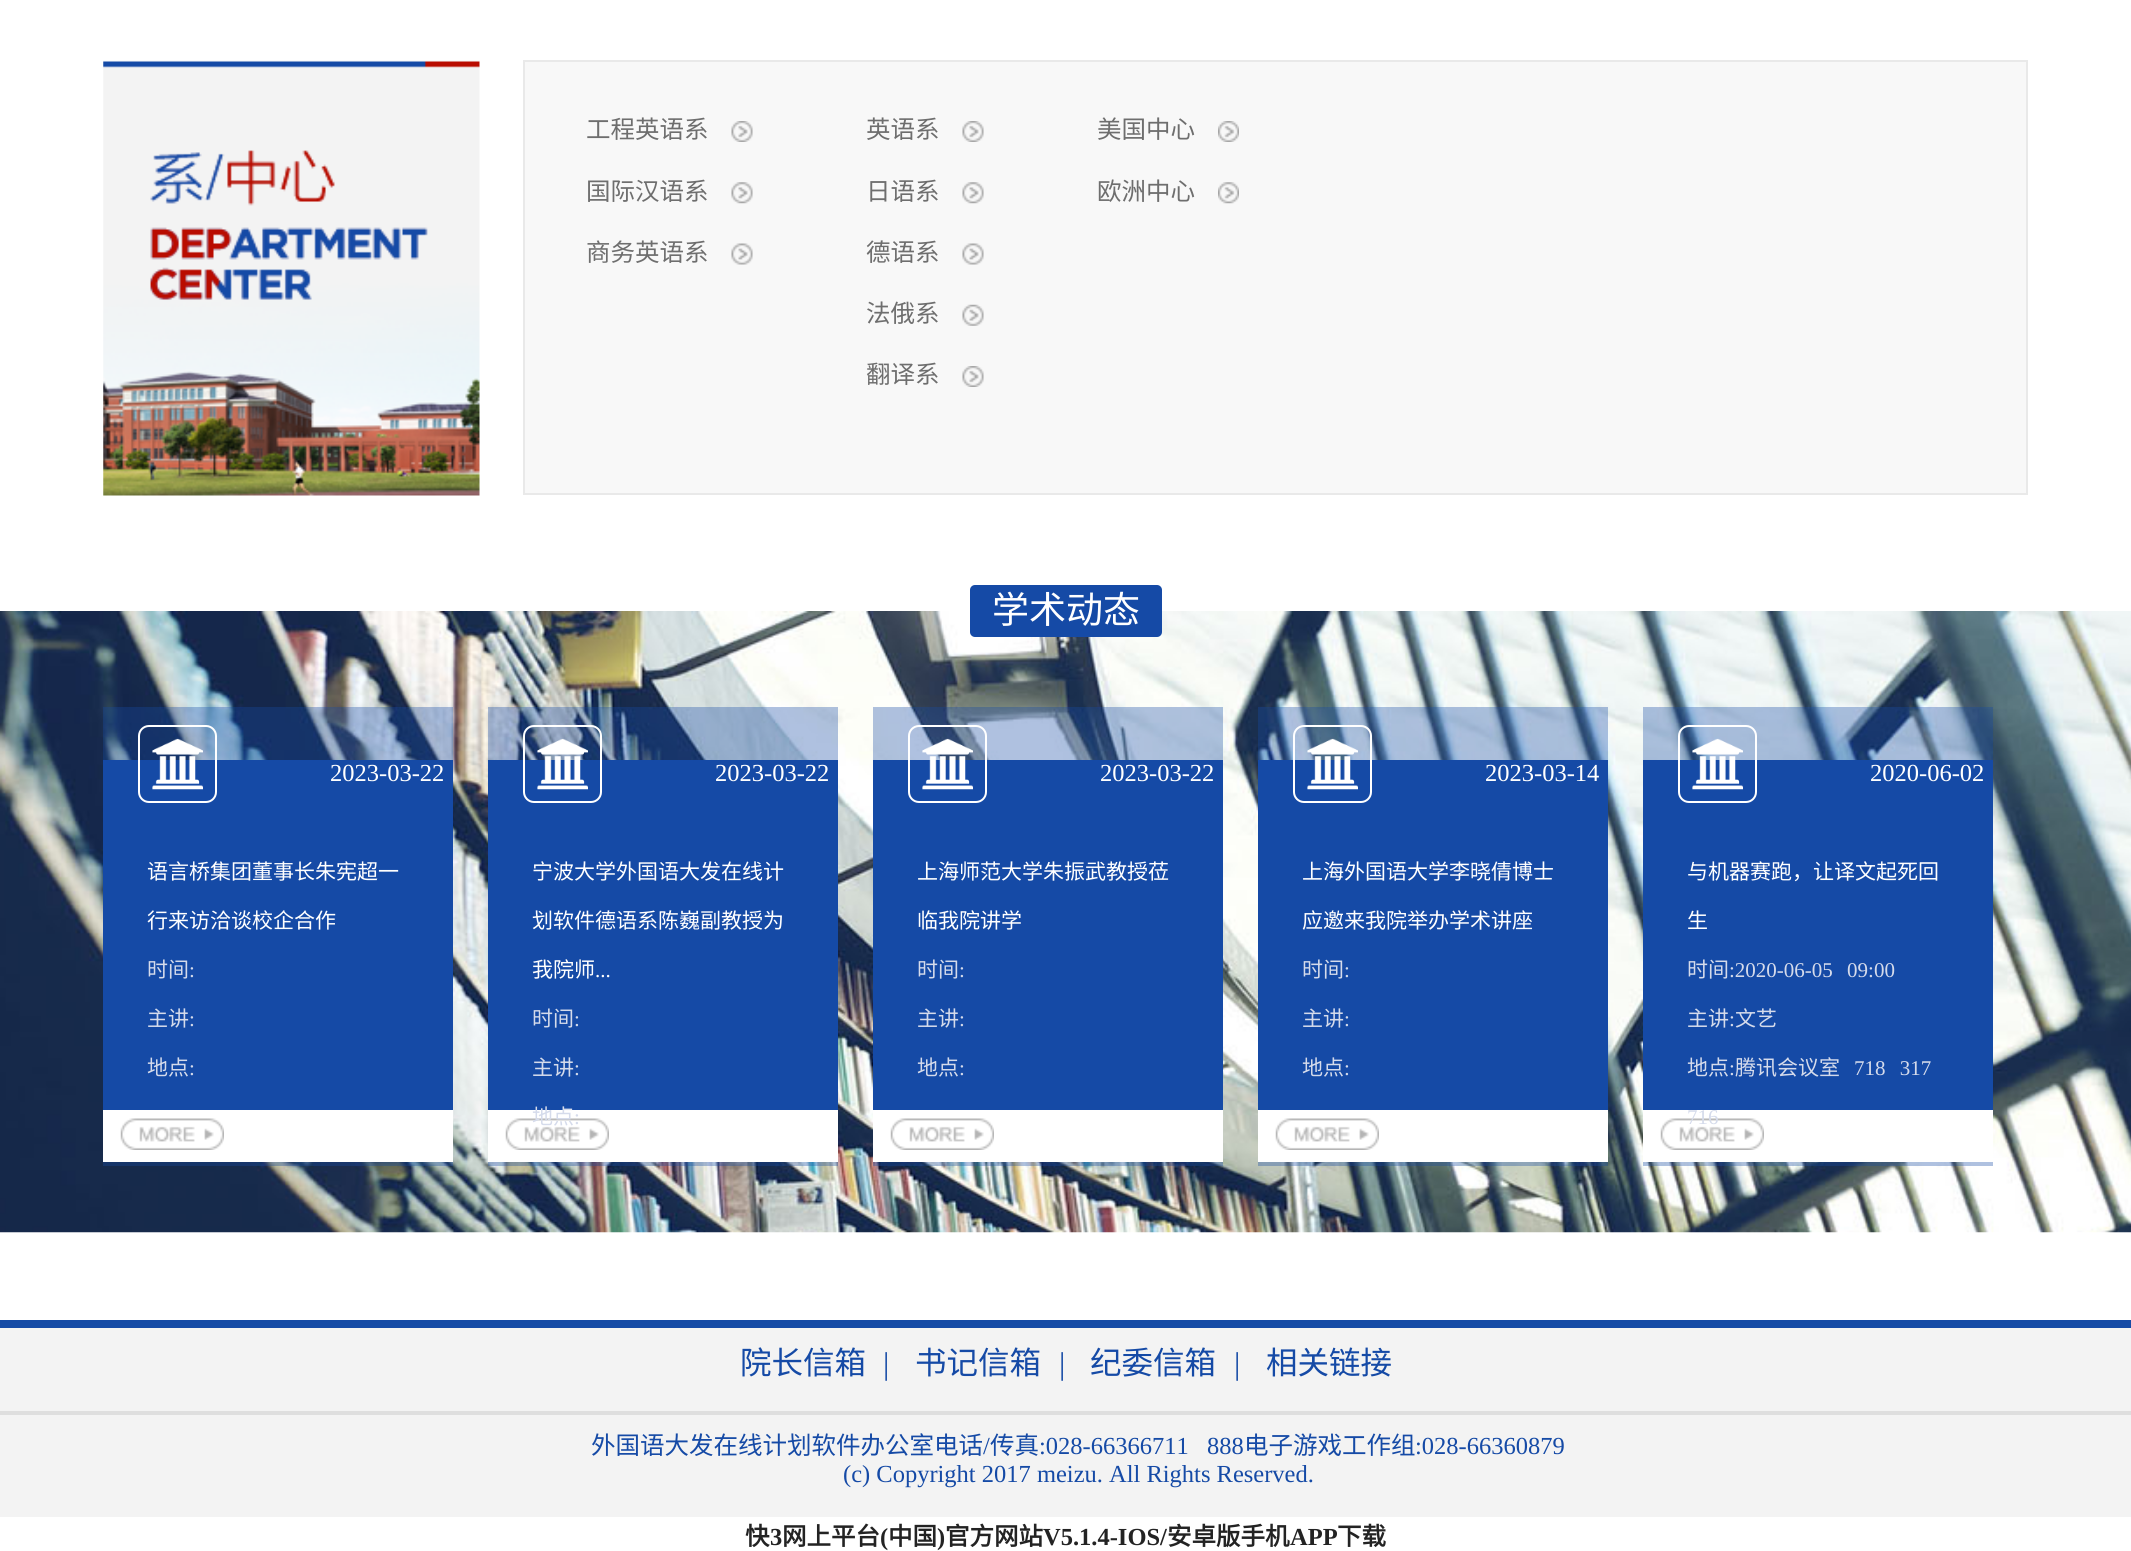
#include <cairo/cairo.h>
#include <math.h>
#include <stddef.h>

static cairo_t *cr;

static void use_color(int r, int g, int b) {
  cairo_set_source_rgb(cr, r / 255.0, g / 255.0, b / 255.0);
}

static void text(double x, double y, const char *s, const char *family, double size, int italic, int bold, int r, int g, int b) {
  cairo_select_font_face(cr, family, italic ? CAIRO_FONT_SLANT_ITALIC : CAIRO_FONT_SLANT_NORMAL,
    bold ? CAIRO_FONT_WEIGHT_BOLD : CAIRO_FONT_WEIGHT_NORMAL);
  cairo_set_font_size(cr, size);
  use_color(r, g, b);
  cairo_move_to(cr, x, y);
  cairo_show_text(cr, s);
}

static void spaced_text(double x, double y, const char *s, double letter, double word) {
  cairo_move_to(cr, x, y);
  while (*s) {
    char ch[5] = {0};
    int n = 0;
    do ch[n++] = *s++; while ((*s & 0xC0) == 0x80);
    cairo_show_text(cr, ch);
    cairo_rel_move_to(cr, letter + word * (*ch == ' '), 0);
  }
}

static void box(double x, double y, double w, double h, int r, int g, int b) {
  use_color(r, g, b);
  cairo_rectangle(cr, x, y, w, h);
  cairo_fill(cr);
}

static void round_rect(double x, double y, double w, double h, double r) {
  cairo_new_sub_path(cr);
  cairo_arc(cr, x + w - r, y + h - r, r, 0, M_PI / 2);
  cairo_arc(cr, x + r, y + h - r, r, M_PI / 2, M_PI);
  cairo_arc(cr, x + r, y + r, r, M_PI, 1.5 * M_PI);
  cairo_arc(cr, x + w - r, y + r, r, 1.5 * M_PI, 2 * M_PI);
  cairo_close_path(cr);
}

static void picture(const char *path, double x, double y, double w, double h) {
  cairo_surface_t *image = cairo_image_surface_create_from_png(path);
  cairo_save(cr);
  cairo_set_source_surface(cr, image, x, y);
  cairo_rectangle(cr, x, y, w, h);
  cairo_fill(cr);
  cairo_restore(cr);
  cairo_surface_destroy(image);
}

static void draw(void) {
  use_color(255, 255, 255);
  cairo_paint(cr);
  picture("img_01.png", 103, 60, 377, 436);
  use_color(248, 248, 248);
  cairo_rectangle(cr, 524, 61, 1503, 433);
  cairo_fill_preserve(cr);
  use_color(233, 233, 233);
  cairo_stroke(cr);
  picture("img_02.png", 731, 121, 22, 21);
  picture("img_03.png", 731, 182, 22, 22);
  picture("img_04.png", 731, 243, 22, 22);
  picture("img_02.png", 962, 121, 22, 21);
  picture("img_03.png", 962, 182, 22, 22);
  picture("img_04.png", 962, 243, 22, 22);
  picture("img_05.png", 962, 304, 22, 22);
  picture("img_02.png", 962, 366, 22, 21);
  picture("img_06.png", 1218, 121, 21, 21);
  picture("img_07.png", 1218, 182, 21, 22);
  picture("img_08.png", 0, 611, 2131, 622);
  use_color(21, 74, 166);
  round_rect(970, 585, 192, 52, 5);
  cairo_fill(cr);
  cairo_set_source_rgba(cr, 0.082, 0.29, 0.651, 0.34);
  cairo_rectangle(cr, 103, 707, 350, 459);
  cairo_fill(cr);
  box(103, 760, 350, 350, 21, 74, 166);
  round_rect(139, 726, 77, 76, 10);
  use_color(255, 255, 255);
  cairo_stroke(cr);
  picture("img_09.png", 152, 738, 51, 52);
  box(103, 1110, 350, 52, 255, 255, 255);
  picture("img_10.png", 120, 1118, 104, 32);
  cairo_set_source_rgba(cr, 0.082, 0.29, 0.651, 0.34);
  cairo_rectangle(cr, 488, 707, 350, 459);
  cairo_fill(cr);
  box(488, 760, 350, 350, 21, 74, 166);
  round_rect(524, 726, 77, 76, 10);
  use_color(255, 255, 255);
  cairo_stroke(cr);
  picture("img_11.png", 537, 738, 51, 52);
  box(488, 1110, 350, 52, 255, 255, 255);
  picture("img_10.png", 505, 1118, 104, 32);
  cairo_set_source_rgba(cr, 0.082, 0.29, 0.651, 0.34);
  cairo_rectangle(cr, 873, 707, 350, 459);
  cairo_fill(cr);
  box(873, 760, 350, 350, 21, 74, 166);
  round_rect(909, 726, 77, 76, 10);
  use_color(255, 255, 255);
  cairo_stroke(cr);
  picture("img_12.png", 922, 738, 51, 52);
  box(873, 1110, 350, 52, 255, 255, 255);
  picture("img_13.png", 890, 1118, 104, 32);
  cairo_set_source_rgba(cr, 0.082, 0.29, 0.651, 0.34);
  cairo_rectangle(cr, 1258, 707, 350, 459);
  cairo_fill(cr);
  box(1258, 760, 350, 350, 21, 74, 166);
  round_rect(1294, 726, 77, 76, 10);
  use_color(255, 255, 255);
  cairo_stroke(cr);
  picture("img_14.png", 1307, 738, 51, 52);
  box(1258, 1110, 350, 52, 255, 255, 255);
  picture("img_10.png", 1275, 1118, 104, 32);
  cairo_set_source_rgba(cr, 0.082, 0.29, 0.651, 0.34);
  cairo_rectangle(cr, 1643, 707, 350, 459);
  cairo_fill(cr);
  box(1643, 760, 350, 350, 21, 74, 166);
  round_rect(1679, 726, 77, 76, 10);
  use_color(255, 255, 255);
  cairo_stroke(cr);
  picture("img_15.png", 1692, 738, 51, 52);
  box(1643, 1110, 350, 52, 255, 255, 255);
  picture("img_10.png", 1660, 1118, 104, 32);
  box(0, 1328, 2131, 189, 243, 243, 243);
  box(0, 1320, 2131, 8, 21, 75, 166);
  box(0, 1411, 2131, 4, 222, 222, 222);
  text(586, 138, "工程英语系", "Noto Sans CJK SC", 24.5, 0, 0, 110, 110, 110);
  text(586, 200, "国际汉语系", "Noto Sans CJK SC", 24.5, 0, 0, 110, 110, 110);
  text(586, 261, "商务英语系", "Noto Sans CJK SC", 24.5, 0, 0, 110, 110, 110);
  text(866, 138, "英语系", "Noto Sans CJK SC", 24.5, 0, 0, 110, 110, 110);
  text(866, 200, "日语系", "Noto Sans CJK SC", 24.5, 0, 0, 110, 110, 110);
  text(866, 261, "德语系", "Noto Sans CJK SC", 24.5, 0, 0, 110, 110, 110);
  text(866, 322, "法俄系", "Noto Sans CJK SC", 24.5, 0, 0, 110, 110, 110);
  text(866, 383, "翻译系", "Noto Sans CJK SC", 24.5, 0, 0, 110, 110, 110);
  text(1097, 138, "美国中心", "Noto Sans CJK SC", 24.5, 0, 0, 110, 110, 110);
  text(1097, 200, "欧洲中心", "Noto Sans CJK SC", 24.5, 0, 0, 110, 110, 110);
  text(992, 623, "学术动态", "Noto Sans CJK SC", 37, 0, 0, 255, 255, 255);
  text(330, 781, "2023-03-22", "Liberation Serif", 24.5, 0, 0, 255, 255, 255);
  text(147, 879, "语言桥集团董事长朱宪超一", "Noto Sans CJK SC", 21, 0, 0, 255, 255, 255);
  text(147, 928, "行来访洽谈校企合作", "Noto Sans CJK SC", 21, 0, 0, 255, 255, 255);
  text(147, 977, "时间", "Noto Sans CJK SC", 21, 0, 0, 213, 219, 235);
  text(189, 977, ":", "Liberation Serif", 21, 0, 0, 213, 219, 235);
  text(147, 1026, "主讲", "Noto Sans CJK SC", 21, 0, 0, 213, 219, 235);
  text(189, 1026, ":", "Liberation Serif", 21, 0, 0, 213, 219, 235);
  text(147, 1075, "地点", "Noto Sans CJK SC", 21, 0, 0, 213, 219, 235);
  text(189, 1075, ":", "Liberation Serif", 21, 0, 0, 213, 219, 235);
  text(715, 781, "2023-03-22", "Liberation Serif", 24.5, 0, 0, 255, 255, 255);
  text(532, 879, "宁波大学外国语大发在线计", "Noto Sans CJK SC", 21, 0, 0, 255, 255, 255);
  text(532, 928, "划软件德语系陈巍副教授为", "Noto Sans CJK SC", 21, 0, 0, 255, 255, 255);
  text(532, 977, "我院师", "Noto Sans CJK SC", 21, 0, 0, 255, 255, 255);
  text(595, 977, "...", "Liberation Serif", 21, 0, 0, 255, 255, 255);
  text(532, 1026, "时间", "Noto Sans CJK SC", 21, 0, 0, 213, 219, 235);
  text(574, 1026, ":", "Liberation Serif", 21, 0, 0, 213, 219, 235);
  text(532, 1075, "主讲", "Noto Sans CJK SC", 21, 0, 0, 213, 219, 235);
  text(574, 1075, ":", "Liberation Serif", 21, 0, 0, 213, 219, 235);
  text(532, 1124, "地点", "Noto Sans CJK SC", 21, 0, 0, 213, 219, 235);
  text(574, 1124, ":", "Liberation Serif", 21, 0, 0, 213, 219, 235);
  text(1100, 781, "2023-03-22", "Liberation Serif", 24.5, 0, 0, 255, 255, 255);
  text(917, 879, "上海师范大学朱振武教授莅", "Noto Sans CJK SC", 21, 0, 0, 255, 255, 255);
  text(917, 928, "临我院讲学", "Noto Sans CJK SC", 21, 0, 0, 255, 255, 255);
  text(917, 977, "时间", "Noto Sans CJK SC", 21, 0, 0, 213, 219, 235);
  text(959, 977, ":", "Liberation Serif", 21, 0, 0, 213, 219, 235);
  text(917, 1026, "主讲", "Noto Sans CJK SC", 21, 0, 0, 213, 219, 235);
  text(959, 1026, ":", "Liberation Serif", 21, 0, 0, 213, 219, 235);
  text(917, 1075, "地点", "Noto Sans CJK SC", 21, 0, 0, 213, 219, 235);
  text(959, 1075, ":", "Liberation Serif", 21, 0, 0, 213, 219, 235);
  text(1485, 781, "2023-03-14", "Liberation Serif", 24.5, 0, 0, 255, 255, 255);
  text(1302, 879, "上海外国语大学李晓倩博士", "Noto Sans CJK SC", 21, 0, 0, 255, 255, 255);
  text(1302, 928, "应邀来我院举办学术讲座", "Noto Sans CJK SC", 21, 0, 0, 255, 255, 255);
  text(1302, 977, "时间", "Noto Sans CJK SC", 21, 0, 0, 213, 219, 235);
  text(1344, 977, ":", "Liberation Serif", 21, 0, 0, 213, 219, 235);
  text(1302, 1026, "主讲", "Noto Sans CJK SC", 21, 0, 0, 213, 219, 235);
  text(1344, 1026, ":", "Liberation Serif", 21, 0, 0, 213, 219, 235);
  text(1302, 1075, "地点", "Noto Sans CJK SC", 21, 0, 0, 213, 219, 235);
  text(1344, 1075, ":", "Liberation Serif", 21, 0, 0, 213, 219, 235);
  text(1870, 781, "2020-06-02", "Liberation Serif", 24.5, 0, 0, 255, 255, 255);
  text(1687, 879, "与机器赛跑，让译文起死回", "Noto Sans CJK SC", 21, 0, 0, 255, 255, 255);
  text(1687, 928, "生", "Noto Sans CJK SC", 21, 0, 0, 255, 255, 255);
  text(1687, 977, "时间", "Noto Sans CJK SC", 21, 0, 0, 213, 219, 235);
  cairo_select_font_face(cr, "Liberation Serif", CAIRO_FONT_SLANT_NORMAL, CAIRO_FONT_WEIGHT_NORMAL);
  spaced_text(1729, 977, ":2020-06-05 09:00", 0, 9);
  text(1687, 1026, "主讲", "Noto Sans CJK SC", 21, 0, 0, 213, 219, 235);
  text(1729, 1026, ":", "Liberation Serif", 21, 0, 0, 213, 219, 235);
  text(1735, 1026, "文艺", "Noto Sans CJK SC", 21, 0, 0, 213, 219, 235);
  text(1687, 1075, "地点", "Noto Sans CJK SC", 21, 0, 0, 213, 219, 235);
  text(1729, 1075, ":", "Liberation Serif", 21, 0, 0, 213, 219, 235);
  text(1735, 1075, "腾讯会议室", "Noto Sans CJK SC", 21, 0, 0, 213, 219, 235);
  cairo_select_font_face(cr, "Liberation Serif", CAIRO_FONT_SLANT_NORMAL, CAIRO_FONT_WEIGHT_NORMAL);
  spaced_text(1854, 1075, "718 317", 0, 9);
  text(1687, 1124, "716", "Liberation Serif", 21, 0, 0, 213, 219, 235);
  text(740, 1374, "院长信箱", "Noto Sans CJK SC", 31.5, 0, 0, 21, 74, 166);
  text(883, 1374, "|", "Liberation Serif", 31.5, 0, 0, 21, 74, 166);
  text(915, 1374, "书记信箱", "Noto Sans CJK SC", 31.5, 0, 0, 21, 74, 166);
  text(1059, 1374, "|", "Liberation Serif", 31.5, 0, 0, 21, 74, 166);
  text(1090, 1374, "纪委信箱", "Noto Sans CJK SC", 31.5, 0, 0, 21, 74, 166);
  text(1234, 1374, "|", "Liberation Serif", 31.5, 0, 0, 21, 74, 166);
  text(1266, 1374, "相关链接", "Noto Sans CJK SC", 31.5, 0, 0, 21, 74, 166);
  text(591, 1454, "外国语大发在线计划软件办公室电话", "Noto Sans CJK SC", 24.5, 0, 0, 21, 74, 166);
  text(983, 1454, "/", "Liberation Serif", 24.5, 0, 0, 21, 74, 166);
  text(990, 1454, "传真", "Noto Sans CJK SC", 24.5, 0, 0, 21, 74, 166);
  text(1039, 1454, ":028-66366711   888", "Liberation Serif", 24.5, 0, 0, 21, 74, 166);
  text(1244, 1454, "电子游戏工作组", "Noto Sans CJK SC", 24.5, 0, 0, 21, 74, 166);
  text(1415, 1454, ":028-66360879", "Liberation Serif", 24.5, 0, 0, 21, 74, 166);
  text(843, 1482, "(c) Copyright 2017 meizu. All Rights Reserved.", "Liberation Serif", 24.5, 0, 0, 21, 74, 166);
  text(745, 1545, "快", "Noto Sans CJK SC", 24.5, 0, 1, 35, 35, 35);
  text(770, 1545, "3", "Liberation Serif", 24.5, 0, 1, 35, 35, 35);
  text(782, 1545, "网上平台", "Noto Sans CJK SC", 24.5, 0, 1, 35, 35, 35);
  text(880, 1545, "(", "Liberation Serif", 24.5, 0, 1, 35, 35, 35);
  text(888, 1545, "中国", "Noto Sans CJK SC", 24.5, 0, 1, 35, 35, 35);
  text(937, 1545, ")", "Liberation Serif", 24.5, 0, 1, 35, 35, 35);
  text(945, 1545, "官方网站", "Noto Sans CJK SC", 24.5, 0, 1, 35, 35, 35);
  text(1043, 1545, "V5.1.4-IOS/", "Liberation Serif", 24.5, 0, 1, 35, 35, 35);
  text(1167, 1545, "安卓版手机", "Noto Sans CJK SC", 24.5, 0, 1, 35, 35, 35);
  text(1290, 1545, "APP", "Liberation Serif", 24.5, 0, 1, 35, 35, 35);
  text(1337, 1545, "下载", "Noto Sans CJK SC", 24.5, 0, 1, 35, 35, 35);
}

int main(void) {
  cairo_surface_t *surface = cairo_image_surface_create(CAIRO_FORMAT_RGB24, 2131, 1551);
  cr = cairo_create(surface);
  cairo_font_options_t *options = cairo_font_options_create();
  cairo_font_options_set_hint_metrics(options, CAIRO_HINT_METRICS_OFF);
  cairo_font_options_set_hint_style(options, CAIRO_HINT_STYLE_NONE);
  cairo_set_font_options(cr, options);
  cairo_set_miter_limit(cr, 4);
  draw();
  cairo_surface_write_to_png(surface, "out.png");
  cairo_font_options_destroy(options);
  cairo_destroy(cr);
  cairo_surface_destroy(surface);
  return 0;
}
